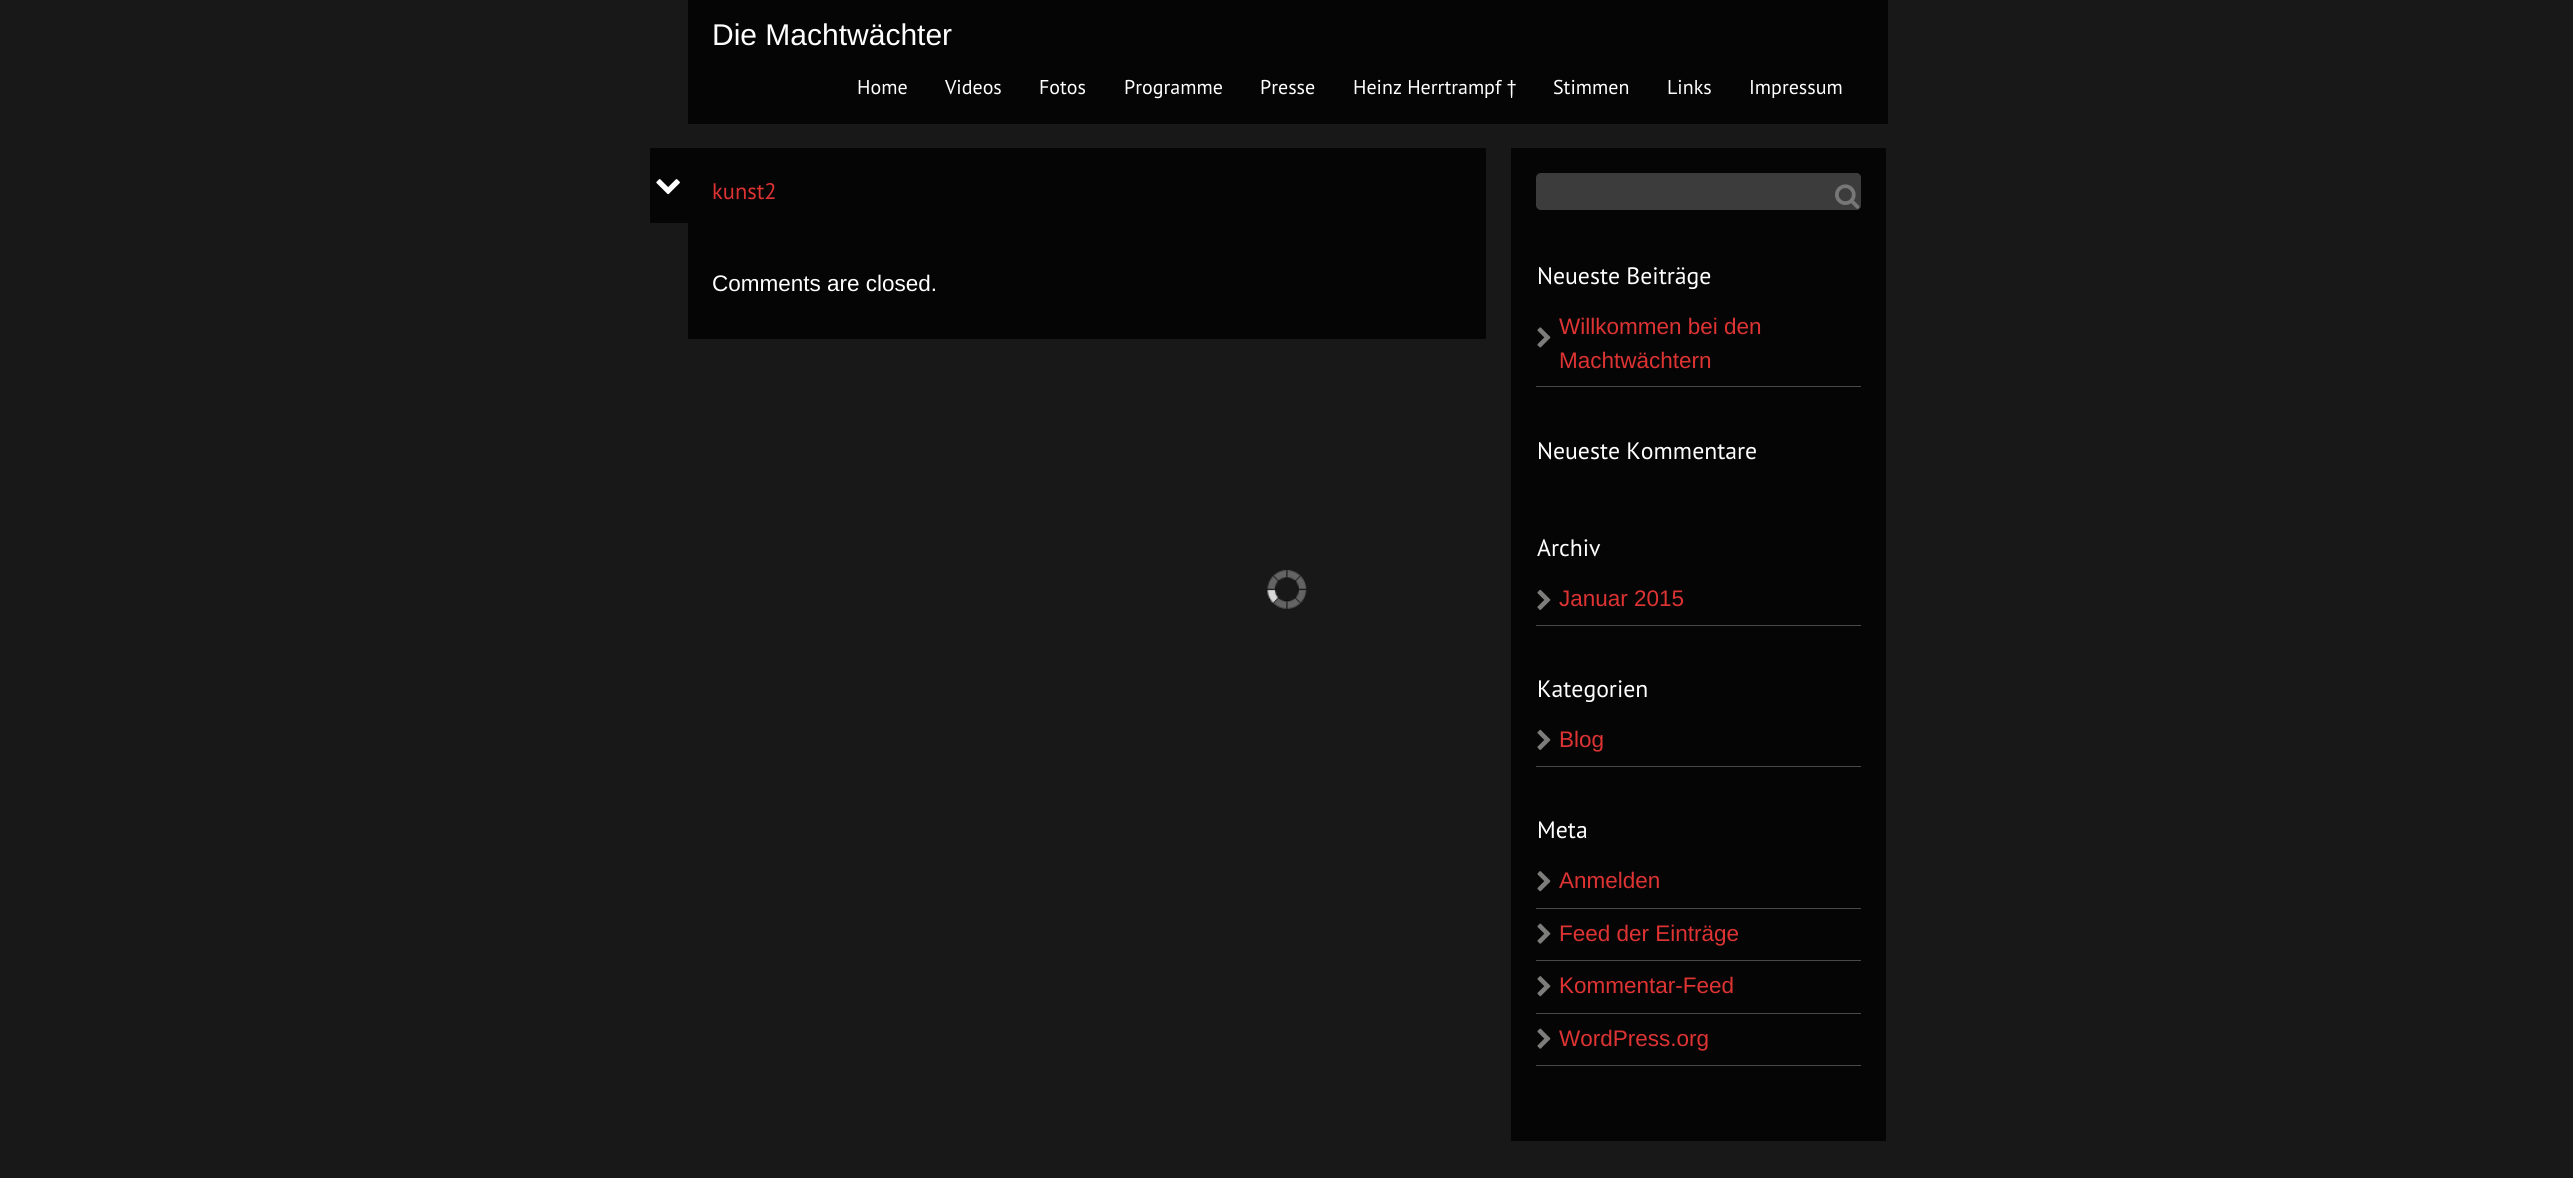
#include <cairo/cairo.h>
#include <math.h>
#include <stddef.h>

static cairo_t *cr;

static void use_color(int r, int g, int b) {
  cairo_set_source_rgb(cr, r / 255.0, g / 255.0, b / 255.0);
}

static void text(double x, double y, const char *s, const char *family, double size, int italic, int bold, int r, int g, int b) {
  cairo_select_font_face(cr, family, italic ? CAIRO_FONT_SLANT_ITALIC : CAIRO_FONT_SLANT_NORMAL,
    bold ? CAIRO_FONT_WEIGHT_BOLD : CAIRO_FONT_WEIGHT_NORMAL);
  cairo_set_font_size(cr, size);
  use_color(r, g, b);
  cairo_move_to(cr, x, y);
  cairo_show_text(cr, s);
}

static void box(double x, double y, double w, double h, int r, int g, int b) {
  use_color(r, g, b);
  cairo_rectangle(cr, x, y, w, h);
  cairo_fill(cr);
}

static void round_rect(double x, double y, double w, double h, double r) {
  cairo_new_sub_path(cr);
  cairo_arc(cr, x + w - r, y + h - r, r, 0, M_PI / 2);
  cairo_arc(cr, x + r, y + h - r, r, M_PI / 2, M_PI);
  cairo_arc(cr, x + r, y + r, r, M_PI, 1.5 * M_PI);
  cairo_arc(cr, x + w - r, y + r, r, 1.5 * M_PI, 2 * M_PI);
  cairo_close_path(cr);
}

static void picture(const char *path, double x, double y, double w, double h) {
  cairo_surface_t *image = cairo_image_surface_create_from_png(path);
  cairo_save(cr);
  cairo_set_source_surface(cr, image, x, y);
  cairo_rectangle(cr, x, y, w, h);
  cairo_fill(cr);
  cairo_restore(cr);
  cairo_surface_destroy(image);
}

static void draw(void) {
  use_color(24, 24, 24);
  cairo_paint(cr);
  box(688, 0, 1200, 124, 5, 5, 5);
  box(688, 148, 798, 191, 5, 5, 5);
  box(650, 148, 38, 75, 5, 5, 5);
  picture("img_01.png", 656, 179, 24, 16);
  box(1511, 148, 375, 993, 5, 5, 5);
  use_color(61, 60, 60);
  round_rect(1536, 173, 325, 37, 5);
  cairo_fill(cr);
  round_rect(1824, 173, 37, 37, 5);
  cairo_fill(cr);
  picture("img_02.png", 1835, 184, 25, 25);
  box(1536, 386, 325, 1, 73, 73, 73);
  picture("img_03.png", 1537, 327, 14, 21);
  box(1536, 625, 325, 1, 73, 73, 73);
  picture("img_04.png", 1537, 589, 14, 21);
  box(1536, 766, 325, 1, 73, 73, 73);
  picture("img_04.png", 1537, 729, 14, 21);
  box(1536, 908, 325, 1, 73, 73, 73);
  picture("img_05.png", 1537, 871, 14, 21);
  box(1536, 960, 325, 1, 73, 73, 73);
  picture("img_06.png", 1537, 923, 14, 21);
  box(1536, 1013, 325, 1, 73, 73, 73);
  picture("img_05.png", 1537, 976, 14, 21);
  box(1536, 1065, 325, 1, 73, 73, 73);
  picture("img_06.png", 1537, 1028, 14, 21);
  picture("img_07.png", 1267, 570, 40, 39);
  text(712, 45, "Die Machtwächter", "Liberation Sans", 30, 0, 0, 255, 255, 255);
  text(857, 94, "Home", "PT Sans", 20, 0, 0, 255, 255, 255);
  text(945, 94, "Videos", "PT Sans", 20, 0, 0, 255, 255, 255);
  text(1039, 94, "Fotos", "PT Sans", 20, 0, 0, 255, 255, 255);
  text(1124, 94, "Programme", "PT Sans", 20, 0, 0, 255, 255, 255);
  text(1260, 94, "Presse", "PT Sans", 20, 0, 0, 255, 255, 255);
  text(1353, 94, "Heinz Herrtrampf †", "PT Sans", 20, 0, 0, 255, 255, 255);
  text(1553, 94, "Stimmen", "PT Sans", 20, 0, 0, 255, 255, 255);
  text(1667, 94, "Links", "PT Sans", 20, 0, 0, 255, 255, 255);
  text(1749, 94, "Impressum", "PT Sans", 20, 0, 0, 255, 255, 255);
  text(712, 199, "kunst2", "PT Sans", 22.5, 0, 0, 221, 51, 51);
  text(712, 291, "Comments are closed.", "Liberation Sans", 22.5, 0, 0, 255, 255, 255);
  text(1537, 284, "Neueste Beiträge", "PT Sans", 23.75, 0, 0, 255, 255, 255);
  text(1559, 334, "Willkommen bei den", "Liberation Sans", 22.5, 0, 0, 221, 51, 51);
  text(1559, 368, "Machtwächtern", "Liberation Sans", 22.5, 0, 0, 221, 51, 51);
  text(1537, 459, "Neueste Kommentare", "PT Sans", 23.75, 0, 0, 255, 255, 255);
  text(1537, 556, "Archiv", "PT Sans", 23.75, 0, 0, 255, 255, 255);
  text(1559, 606, "Januar 2015", "Liberation Sans", 22.5, 0, 0, 221, 51, 51);
  text(1537, 697, "Kategorien", "PT Sans", 23.75, 0, 0, 255, 255, 255);
  text(1559, 747, "Blog", "Liberation Sans", 22.5, 0, 0, 221, 51, 51);
  text(1537, 838, "Meta", "PT Sans", 23.75, 0, 0, 255, 255, 255);
  text(1559, 888, "Anmelden", "Liberation Sans", 22.5, 0, 0, 221, 51, 51);
  text(1559, 941, "Feed der Einträge", "Liberation Sans", 22.5, 0, 0, 221, 51, 51);
  text(1559, 993, "Kommentar-Feed", "Liberation Sans", 22.5, 0, 0, 221, 51, 51);
  text(1559, 1046, "WordPress.org", "Liberation Sans", 22.5, 0, 0, 221, 51, 51);
}

int main(void) {
  cairo_surface_t *surface = cairo_image_surface_create(CAIRO_FORMAT_RGB24, 2573, 1178);
  cr = cairo_create(surface);
  cairo_font_options_t *options = cairo_font_options_create();
  cairo_font_options_set_hint_metrics(options, CAIRO_HINT_METRICS_OFF);
  cairo_font_options_set_hint_style(options, CAIRO_HINT_STYLE_NONE);
  cairo_set_font_options(cr, options);
  cairo_set_miter_limit(cr, 4);
  draw();
  cairo_surface_write_to_png(surface, "out.png");
  cairo_font_options_destroy(options);
  cairo_destroy(cr);
  cairo_surface_destroy(surface);
  return 0;
}
